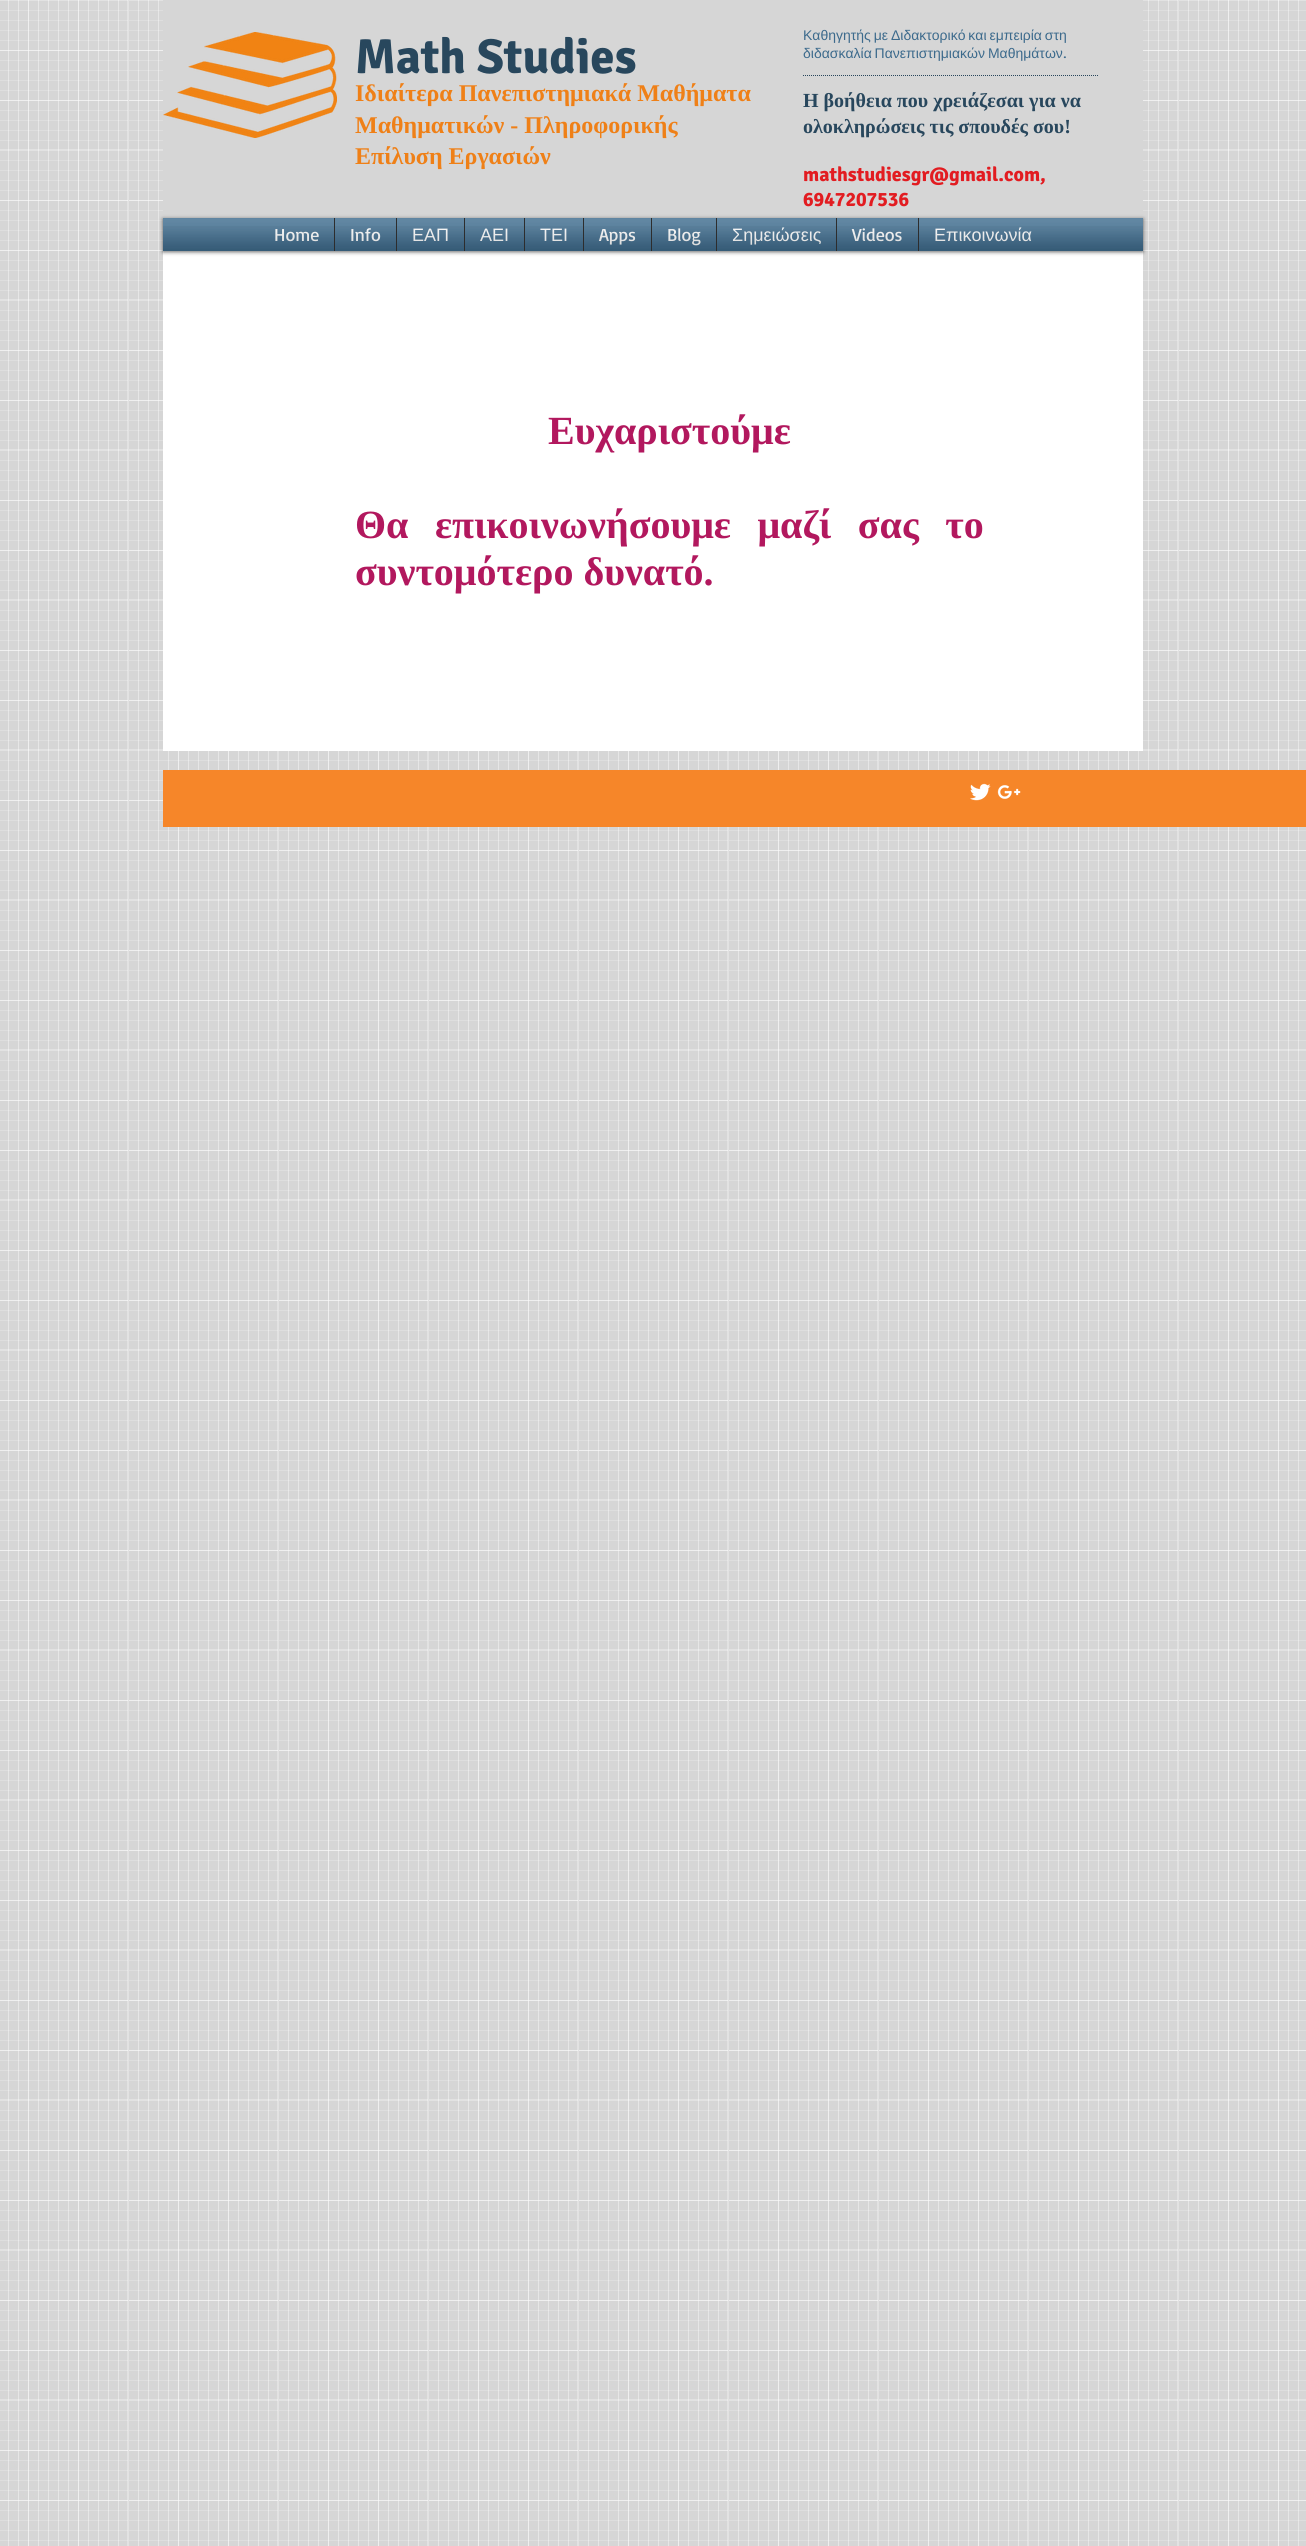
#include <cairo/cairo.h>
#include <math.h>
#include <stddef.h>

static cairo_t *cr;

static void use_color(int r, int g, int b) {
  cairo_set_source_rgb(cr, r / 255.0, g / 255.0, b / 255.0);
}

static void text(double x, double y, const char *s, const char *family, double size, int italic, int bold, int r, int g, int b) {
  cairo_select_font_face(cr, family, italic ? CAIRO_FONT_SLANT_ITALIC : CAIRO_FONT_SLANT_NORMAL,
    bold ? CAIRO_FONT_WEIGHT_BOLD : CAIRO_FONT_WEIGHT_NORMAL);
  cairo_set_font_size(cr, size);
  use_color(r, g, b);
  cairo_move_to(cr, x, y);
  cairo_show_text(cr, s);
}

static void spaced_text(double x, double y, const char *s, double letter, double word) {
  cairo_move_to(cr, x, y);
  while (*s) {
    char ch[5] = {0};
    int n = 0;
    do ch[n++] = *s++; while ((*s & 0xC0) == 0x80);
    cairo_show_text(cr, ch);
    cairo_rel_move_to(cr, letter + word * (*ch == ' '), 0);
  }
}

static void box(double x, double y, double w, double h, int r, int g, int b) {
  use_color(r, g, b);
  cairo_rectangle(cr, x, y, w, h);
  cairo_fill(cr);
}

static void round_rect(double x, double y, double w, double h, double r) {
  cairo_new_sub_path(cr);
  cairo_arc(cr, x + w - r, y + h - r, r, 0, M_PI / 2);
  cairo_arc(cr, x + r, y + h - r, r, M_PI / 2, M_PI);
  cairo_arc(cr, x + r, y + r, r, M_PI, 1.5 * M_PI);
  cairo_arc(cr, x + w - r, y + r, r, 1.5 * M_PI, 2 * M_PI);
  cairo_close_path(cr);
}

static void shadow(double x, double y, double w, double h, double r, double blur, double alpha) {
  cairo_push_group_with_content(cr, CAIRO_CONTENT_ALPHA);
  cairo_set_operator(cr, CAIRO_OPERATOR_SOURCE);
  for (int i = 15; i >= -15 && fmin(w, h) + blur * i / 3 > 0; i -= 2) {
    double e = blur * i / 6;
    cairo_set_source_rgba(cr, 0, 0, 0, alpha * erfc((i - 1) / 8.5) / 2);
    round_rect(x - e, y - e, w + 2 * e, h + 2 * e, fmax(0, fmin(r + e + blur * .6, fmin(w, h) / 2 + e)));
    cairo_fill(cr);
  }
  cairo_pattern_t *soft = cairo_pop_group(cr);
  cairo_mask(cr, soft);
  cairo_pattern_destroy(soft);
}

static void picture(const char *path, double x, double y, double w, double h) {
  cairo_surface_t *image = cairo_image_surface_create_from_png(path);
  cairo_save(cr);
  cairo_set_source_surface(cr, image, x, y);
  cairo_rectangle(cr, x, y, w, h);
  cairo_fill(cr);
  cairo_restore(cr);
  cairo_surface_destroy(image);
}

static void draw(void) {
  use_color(214, 214, 214);
  cairo_paint(cr);
  picture("img_01.png", 0, 0, 1306, 2546);
  box(163, 0, 980, 218, 214, 214, 214);
  picture("img_02.png", 163, 32, 174, 106);
  cairo_new_path(cr);
  cairo_move_to(cr, 803, 75.5);
  cairo_line_to(cr, 1099, 75.5);
  use_color(40, 71, 93);
  cairo_set_line_width(cr, 1);
  cairo_set_dash(cr, (double[]){1, 1}, 2, 0);
  cairo_stroke(cr);
  box(163, 251, 980, 500, 255, 255, 255);
  use_color(0, 0, 0);
  shadow(163, 219, 980, 33, 0, 2, 0.6);
  box(163, 218, 980, 33, 60, 106, 140);
  picture("img_03.png", 163, 218, 980, 33);
  picture("img_04.png", 163, 226, 980, 25);
  box(259, 218, 75, 33, 60, 106, 140);
  box(335, 218, 61, 33, 60, 106, 140);
  box(334, 218, 1, 33, 45, 45, 45);
  box(397, 218, 67, 33, 60, 106, 140);
  box(396, 218, 1, 33, 45, 45, 45);
  box(465, 218, 59, 33, 60, 106, 140);
  box(464, 218, 1, 33, 45, 45, 45);
  box(525, 218, 58, 33, 60, 106, 140);
  box(524, 218, 1, 33, 45, 45, 45);
  box(584, 218, 67, 33, 60, 106, 140);
  box(583, 218, 1, 33, 45, 45, 45);
  box(652, 218, 64, 33, 60, 106, 140);
  box(651, 218, 1, 33, 45, 45, 45);
  box(717, 218, 119, 33, 60, 106, 140);
  box(716, 218, 1, 33, 45, 45, 45);
  box(837, 218, 81, 33, 60, 106, 140);
  box(836, 218, 1, 33, 45, 45, 45);
  box(919, 218, 128, 33, 60, 106, 140);
  box(918, 218, 1, 33, 45, 45, 45);
  box(163, 770, 1143, 57, 246, 134, 41);
  picture("img_25.png", 970, 783, 21, 18);
  picture("img_26.png", 997, 785, 24, 14);
  text(355, 73, "Math Studies", "Signika", 49, 0, 1, 40, 71, 93);
  cairo_select_font_face(cr, "Liberation Sans", CAIRO_FONT_SLANT_NORMAL, CAIRO_FONT_WEIGHT_NORMAL);
  cairo_set_font_size(cr, 14);
  use_color(60, 106, 140);
  spaced_text(803, 40, "Καθηγητής με Διδακτορικό και εμπειρία στη", 0, -1);
  spaced_text(803, 58, "διδασκαλία Πανεπιστημιακών Μαθημάτων", 0, -1);
  text(1063, 58, ".", "Signika", 14, 0, 0, 60, 106, 140);
  text(355, 101, "Ιδιαίτερα Πανεπιστημιακά Μαθήματα", "Liberation Serif", 24, 0, 1, 239, 128, 23);
  text(355, 133, "Μαθηματικών - Πληροφορικής", "Liberation Serif", 24, 0, 1, 239, 128, 23);
  text(355, 164, "Επίλυση Εργασιών", "Liberation Serif", 24, 0, 1, 239, 128, 23);
  text(803, 107, "Η βοήθεια που χρειάζεσαι για να", "Liberation Serif", 20, 0, 1, 40, 71, 93);
  text(803, 133, "ολοκληρώσεις τις σπουδές σου!", "Liberation Serif", 20, 0, 1, 40, 71, 93);
  text(803, 181, "mathstudiesgr@gmail.com,", "Signika", 20, 0, 1, 226, 28, 33);
  text(803, 206, "6947207536", "Signika", 20, 0, 1, 226, 28, 33);
  text(274, 241, "Home", "Basic", 18, 0, 0, 255, 255, 255);
  picture("img_05.png", 259, 218, 75, 33);
  picture("img_06.png", 259, 226, 75, 25);
  text(350, 241, "Info", "Basic", 18, 0, 0, 255, 255, 255);
  picture("img_07.png", 335, 218, 61, 33);
  picture("img_08.png", 335, 226, 61, 25);
  text(412, 241, "ΕΑΠ", "Liberation Sans", 18, 0, 0, 255, 255, 255);
  picture("img_09.png", 397, 218, 67, 33);
  picture("img_10.png", 397, 226, 67, 25);
  text(480, 241, "ΑΕΙ", "Liberation Sans", 18, 0, 0, 255, 255, 255);
  picture("img_11.png", 465, 218, 59, 33);
  picture("img_12.png", 465, 226, 59, 25);
  text(540, 241, "ΤΕΙ", "Liberation Sans", 18, 0, 0, 255, 255, 255);
  picture("img_13.png", 525, 218, 58, 33);
  picture("img_14.png", 525, 226, 58, 25);
  text(599, 241, "Apps", "Basic", 18, 0, 0, 255, 255, 255);
  picture("img_15.png", 584, 218, 67, 33);
  picture("img_16.png", 584, 226, 67, 25);
  text(667, 241, "Blog", "Basic", 18, 0, 0, 255, 255, 255);
  picture("img_17.png", 652, 218, 64, 33);
  picture("img_18.png", 652, 226, 64, 25);
  text(732, 241, "Σημειώσεις", "Liberation Sans", 18, 0, 0, 255, 255, 255);
  picture("img_19.png", 717, 218, 119, 33);
  picture("img_20.png", 717, 226, 119, 25);
  text(852, 241, "Videos", "Basic", 18, 0, 0, 255, 255, 255);
  picture("img_21.png", 837, 218, 81, 33);
  picture("img_22.png", 837, 226, 81, 25);
  text(934, 241, "Επικοινωνία", "Liberation Sans", 18, 0, 0, 255, 255, 255);
  picture("img_23.png", 919, 218, 128, 33);
  picture("img_24.png", 919, 226, 128, 25);
  text(548, 444, "Ευχαριστούμε", "Liberation Serif", 40, 0, 1, 178, 24, 94);
  spaced_text(355, 538, "Θα επικοινωνήσουμε μαζί σας το", 0, 16.5);
  text(355, 585, "συντομότερο δυνατό.", "Liberation Serif", 40, 0, 1, 178, 24, 94);
}

int main(void) {
  cairo_surface_t *surface = cairo_image_surface_create(CAIRO_FORMAT_RGB24, 1306, 2546);
  cr = cairo_create(surface);
  cairo_font_options_t *options = cairo_font_options_create();
  cairo_font_options_set_hint_metrics(options, CAIRO_HINT_METRICS_OFF);
  cairo_font_options_set_hint_style(options, CAIRO_HINT_STYLE_NONE);
  cairo_set_font_options(cr, options);
  cairo_set_miter_limit(cr, 4);
  draw();
  cairo_surface_write_to_png(surface, "out.png");
  cairo_font_options_destroy(options);
  cairo_destroy(cr);
  cairo_surface_destroy(surface);
  return 0;
}
